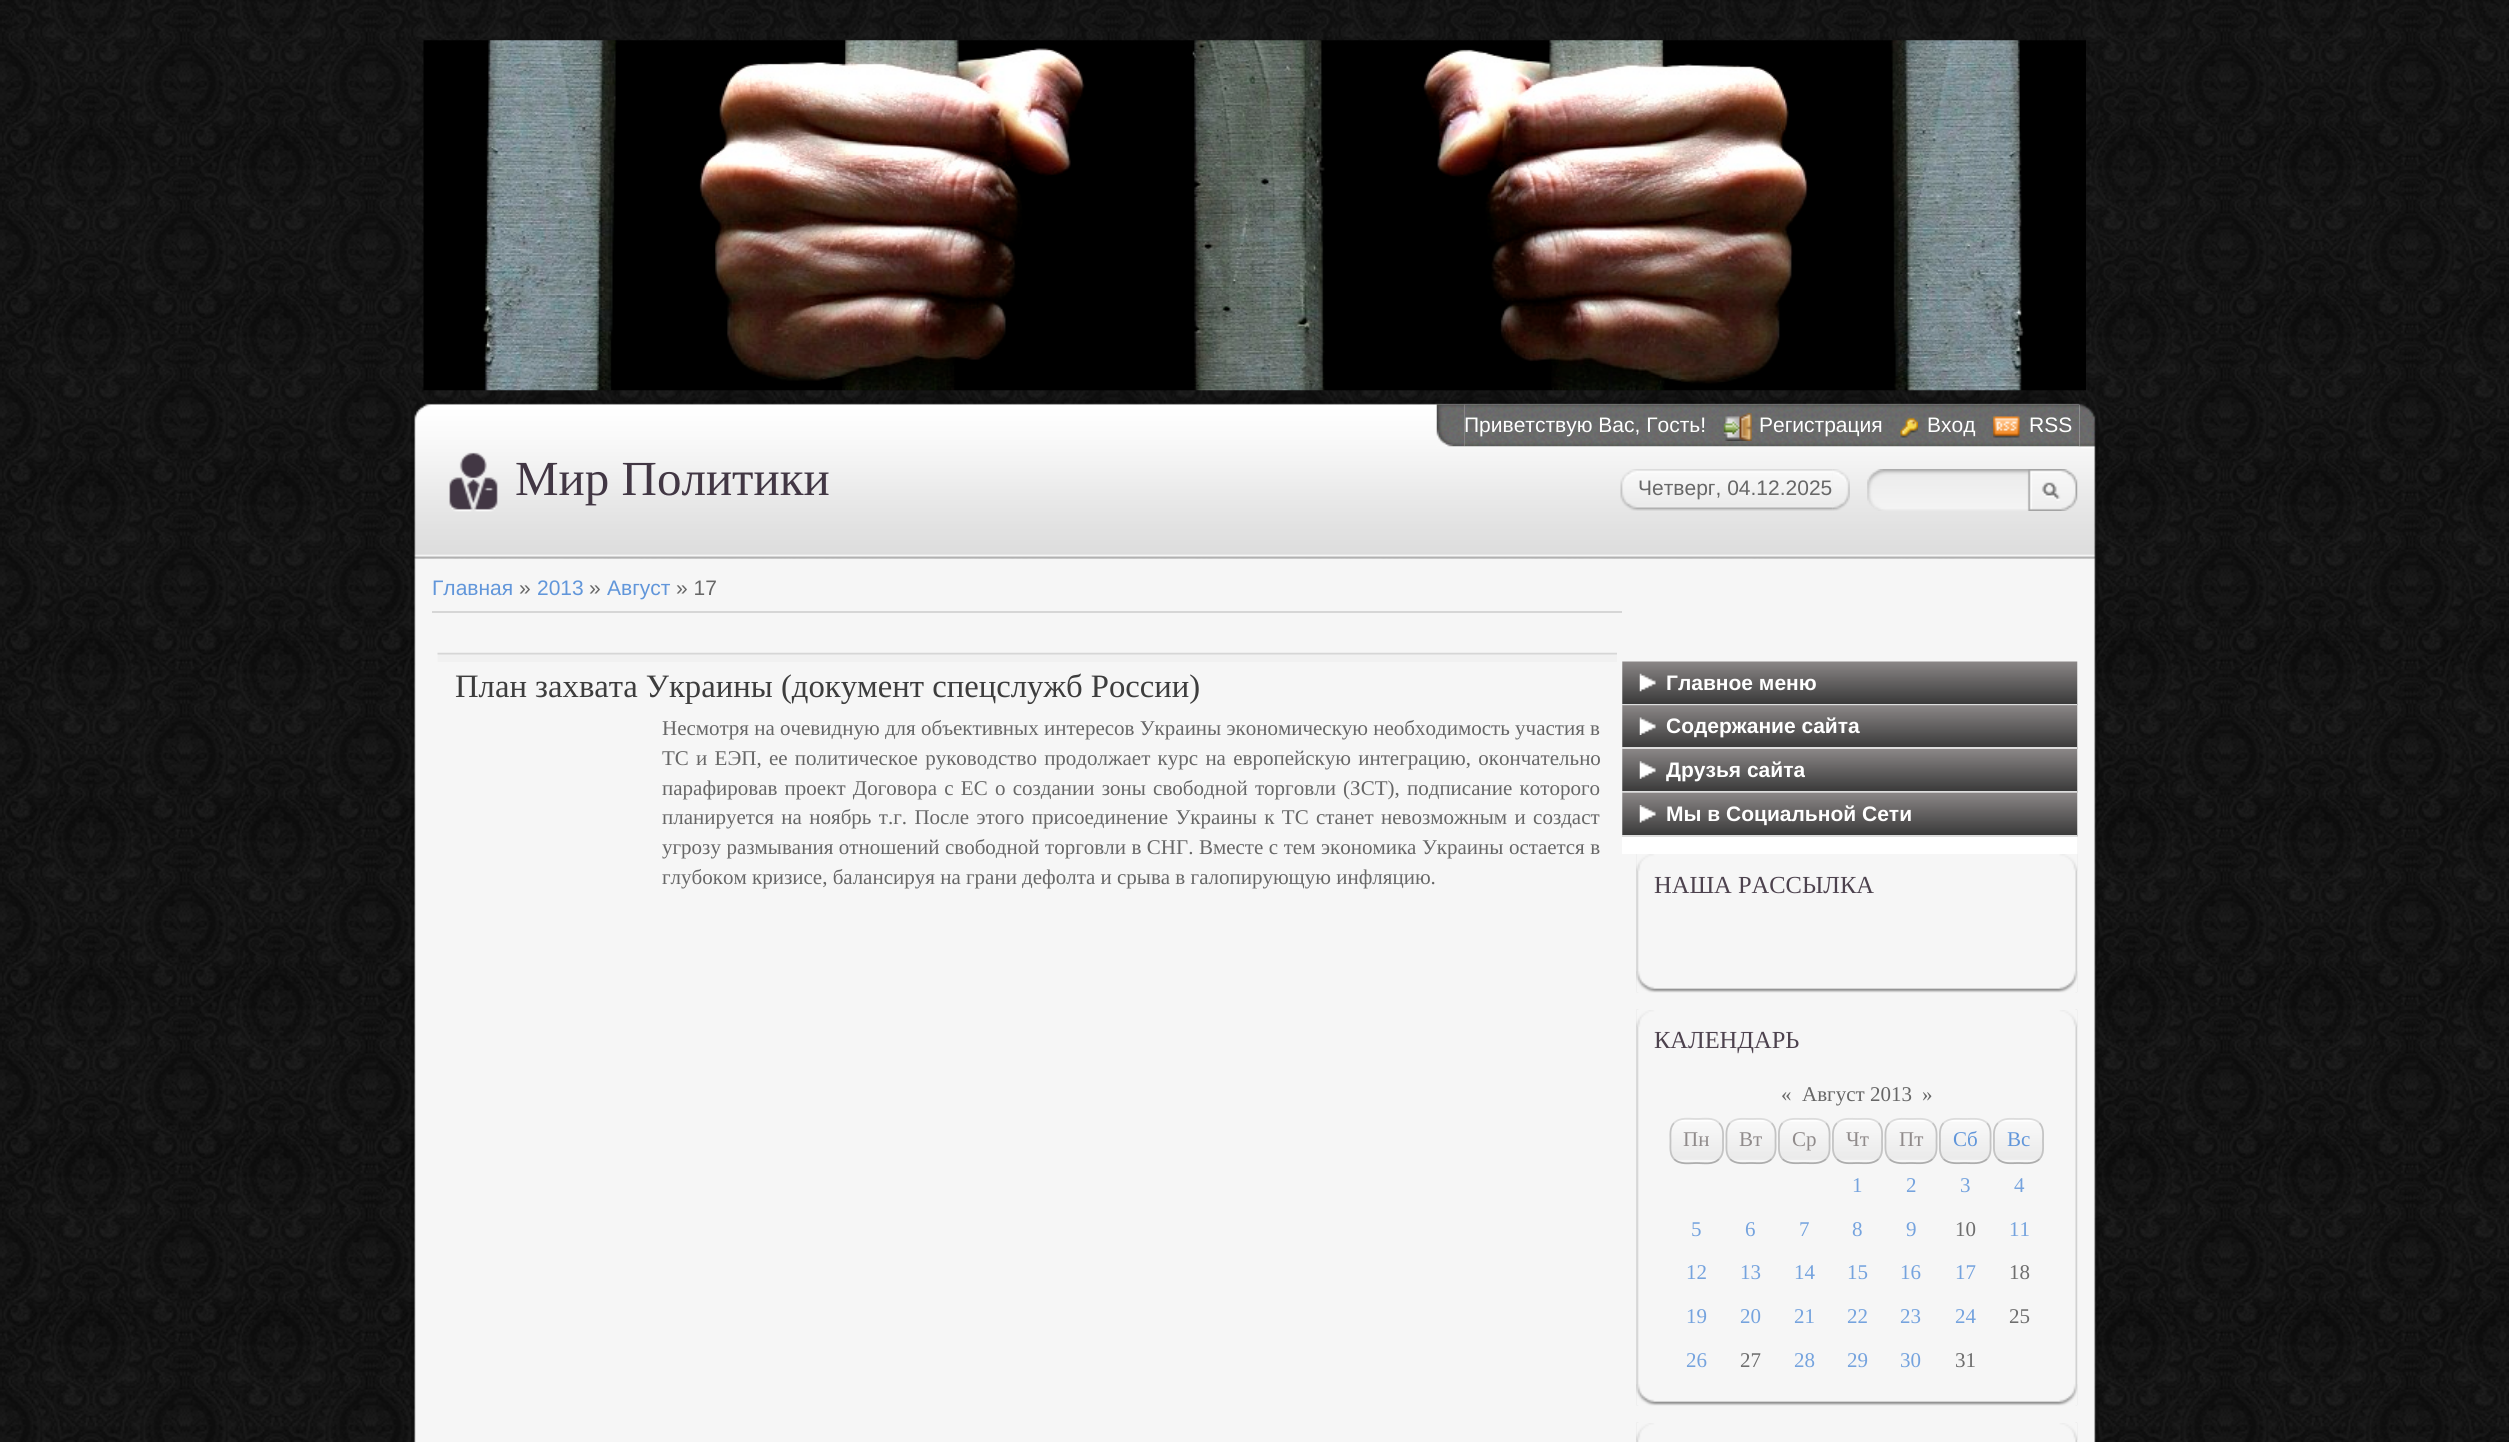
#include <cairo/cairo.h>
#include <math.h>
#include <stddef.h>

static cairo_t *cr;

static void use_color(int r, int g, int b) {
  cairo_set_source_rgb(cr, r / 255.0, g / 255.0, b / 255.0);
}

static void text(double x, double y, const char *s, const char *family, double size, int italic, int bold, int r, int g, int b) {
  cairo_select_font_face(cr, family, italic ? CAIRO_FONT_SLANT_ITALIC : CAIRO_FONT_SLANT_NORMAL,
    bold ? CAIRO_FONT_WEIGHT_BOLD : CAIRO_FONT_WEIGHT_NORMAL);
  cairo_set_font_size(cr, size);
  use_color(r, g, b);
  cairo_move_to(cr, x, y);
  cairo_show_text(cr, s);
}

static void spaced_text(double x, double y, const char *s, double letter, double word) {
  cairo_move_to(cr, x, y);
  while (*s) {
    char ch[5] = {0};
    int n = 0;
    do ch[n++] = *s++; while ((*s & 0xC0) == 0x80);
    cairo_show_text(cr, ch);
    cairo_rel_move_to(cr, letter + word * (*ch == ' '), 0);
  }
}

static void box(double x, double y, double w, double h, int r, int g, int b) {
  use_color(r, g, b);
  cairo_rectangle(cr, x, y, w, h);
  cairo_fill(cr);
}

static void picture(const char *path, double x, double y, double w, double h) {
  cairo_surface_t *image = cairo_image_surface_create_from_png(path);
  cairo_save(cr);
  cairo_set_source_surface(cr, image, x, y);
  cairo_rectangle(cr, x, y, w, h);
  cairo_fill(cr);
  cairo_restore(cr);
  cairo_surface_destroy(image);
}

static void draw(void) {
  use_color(255, 255, 255);
  cairo_paint(cr);
  picture("img_01.png", 0, 0, 2509, 1442);
  picture("img_02.png", 423, 40, 1663, 351);
  picture("img_03.png", 411, 400, 1688, 159);
  picture("img_05.png", 1464, 404, 615, 43);
  picture("img_04.png", 1436, 404, 29, 43);
  picture("img_06.png", 1723, 413, 29, 28);
  picture("img_07.png", 1900, 417, 18, 21);
  picture("img_08.png", 1993, 416, 27, 22);
  picture("img_09.png", 1620, 469, 18, 42);
  picture("img_11.png", 1832, 469, 18, 42);
  picture("img_10.png", 1638, 469, 195, 42);
  picture("img_12.png", 1867, 469, 211, 42);
  picture("img_13.png", 411, 558, 1688, 884);
  box(432, 611, 1190, 2, 214, 214, 214);
  picture("img_14.png", 437, 652, 1180, 10);
  box(1622, 662, 455, 192, 255, 255, 255);
  picture("img_15.png", 1622, 661, 456, 45);
  picture("img_16.png", 1639, 673, 17, 19);
  box(1622, 704, 455, 1, 221, 221, 221);
  picture("img_17.png", 1622, 705, 456, 44);
  picture("img_18.png", 1639, 717, 17, 18);
  box(1622, 747, 455, 2, 221, 221, 221);
  picture("img_19.png", 1622, 749, 456, 44);
  picture("img_20.png", 1639, 761, 17, 18);
  box(1622, 791, 455, 2, 221, 221, 221);
  picture("img_21.png", 1622, 792, 456, 45);
  picture("img_22.png", 1639, 805, 17, 18);
  box(1622, 835, 455, 2, 221, 221, 221);
  picture("img_23.png", 1636, 854, 442, 139);
  picture("img_24.png", 1636, 854, 442, 17);
  picture("img_25.png", 1636, 971, 442, 22);
  picture("img_26.png", 1636, 1009, 442, 397);
  picture("img_27.png", 1636, 1010, 442, 17);
  picture("img_28.png", 1670, 1120, 54, 40);
  cairo_new_path(cr);
  cairo_move_to(cr, 1674, 1123);
  cairo_curve_to(cr, 1680, 1117, 1689.5, 1119, 1696.5, 1119);
  cairo_curve_to(cr, 1704, 1119, 1713.5, 1117, 1719, 1123);
  use_color(220, 220, 220);
  cairo_set_line_width(cr, 1.8);
  cairo_stroke(cr);
  cairo_new_path(cr);
  cairo_move_to(cr, 1719, 1123);
  cairo_curve_to(cr, 1724, 1128, 1723, 1134.5, 1723, 1141);
  cairo_curve_to(cr, 1723, 1147.5, 1724, 1154, 1719, 1159);
  use_color(196, 196, 196);
  cairo_stroke(cr);
  cairo_new_path(cr);
  cairo_move_to(cr, 1719, 1159);
  cairo_curve_to(cr, 1713.5, 1165, 1704, 1163, 1696.5, 1163);
  cairo_curve_to(cr, 1689.5, 1163, 1680, 1165, 1674, 1159);
  use_color(173, 173, 173);
  cairo_stroke(cr);
  cairo_new_path(cr);
  cairo_move_to(cr, 1674, 1159);
  cairo_curve_to(cr, 1669.5, 1154, 1670.5, 1147.5, 1670.5, 1141);
  cairo_curve_to(cr, 1670.5, 1134.5, 1669.5, 1128, 1674, 1123);
  use_color(196, 196, 196);
  cairo_stroke(cr);
  picture("img_29.png", 1726, 1120, 50, 40);
  cairo_new_path(cr);
  cairo_move_to(cr, 1730, 1123);
  cairo_curve_to(cr, 1735.5, 1117.5, 1744, 1119, 1751, 1119);
  cairo_curve_to(cr, 1758, 1119, 1766, 1117.5, 1771.5, 1123);
  use_color(220, 220, 220);
  cairo_stroke(cr);
  cairo_new_path(cr);
  cairo_move_to(cr, 1771.5, 1123);
  cairo_curve_to(cr, 1776.5, 1128, 1775.5, 1134.5, 1775.5, 1141);
  cairo_curve_to(cr, 1775.5, 1147.5, 1776.5, 1154, 1771.5, 1159);
  use_color(196, 196, 196);
  cairo_stroke(cr);
  cairo_new_path(cr);
  cairo_move_to(cr, 1771.5, 1159);
  cairo_curve_to(cr, 1766, 1164.5, 1758, 1163, 1751, 1163);
  cairo_curve_to(cr, 1744, 1163, 1735.5, 1164.5, 1730, 1159);
  use_color(173, 173, 173);
  cairo_stroke(cr);
  cairo_new_path(cr);
  cairo_move_to(cr, 1730, 1159);
  cairo_curve_to(cr, 1725.5, 1154, 1726.5, 1147.5, 1726.5, 1141);
  cairo_curve_to(cr, 1726.5, 1134.5, 1725.5, 1128, 1730, 1123);
  use_color(196, 196, 196);
  cairo_stroke(cr);
  picture("img_30.png", 1778, 1120, 52, 40);
  cairo_new_path(cr);
  cairo_move_to(cr, 1782.5, 1123);
  cairo_curve_to(cr, 1788.5, 1117.5, 1797, 1119, 1804, 1119);
  cairo_curve_to(cr, 1811.5, 1119, 1820, 1117.5, 1826, 1123);
  use_color(220, 220, 220);
  cairo_stroke(cr);
  cairo_new_path(cr);
  cairo_move_to(cr, 1826, 1123);
  cairo_curve_to(cr, 1830.5, 1128, 1829.5, 1134.5, 1829.5, 1141);
  cairo_curve_to(cr, 1829.5, 1147.5, 1830.5, 1154, 1826, 1159);
  use_color(196, 196, 196);
  cairo_stroke(cr);
  cairo_new_path(cr);
  cairo_move_to(cr, 1826, 1159);
  cairo_curve_to(cr, 1820, 1164.5, 1811.5, 1163, 1804, 1163);
  cairo_curve_to(cr, 1797, 1163, 1788.5, 1164.5, 1782.5, 1159);
  use_color(173, 173, 173);
  cairo_stroke(cr);
  cairo_new_path(cr);
  cairo_move_to(cr, 1782.5, 1159);
  cairo_curve_to(cr, 1778, 1154, 1779, 1147.5, 1779, 1141);
  cairo_curve_to(cr, 1779, 1134.5, 1778, 1128, 1782.5, 1123);
  use_color(196, 196, 196);
  cairo_stroke(cr);
  picture("img_31.png", 1832, 1120, 51, 40);
  cairo_new_path(cr);
  cairo_move_to(cr, 1837, 1123);
  cairo_curve_to(cr, 1842.5, 1117.5, 1850.5, 1119, 1857.5, 1119);
  cairo_curve_to(cr, 1864.5, 1119, 1873, 1117.5, 1878.5, 1123);
  use_color(220, 220, 220);
  cairo_stroke(cr);
  cairo_new_path(cr);
  cairo_move_to(cr, 1878.5, 1123);
  cairo_curve_to(cr, 1883, 1128, 1882, 1134.5, 1882, 1141);
  cairo_curve_to(cr, 1882, 1147.5, 1883, 1154, 1878.5, 1159);
  use_color(196, 196, 196);
  cairo_stroke(cr);
  cairo_new_path(cr);
  cairo_move_to(cr, 1878.5, 1159);
  cairo_curve_to(cr, 1873, 1164.5, 1864.5, 1163, 1857.5, 1163);
  cairo_curve_to(cr, 1850.5, 1163, 1842.5, 1164.5, 1837, 1159);
  use_color(173, 173, 173);
  cairo_stroke(cr);
  cairo_new_path(cr);
  cairo_move_to(cr, 1837, 1159);
  cairo_curve_to(cr, 1832, 1154, 1833, 1147.5, 1833, 1141);
  cairo_curve_to(cr, 1833, 1134.5, 1832, 1128, 1837, 1123);
  use_color(196, 196, 196);
  cairo_stroke(cr);
  picture("img_32.png", 1885, 1120, 52, 40);
  cairo_new_path(cr);
  cairo_move_to(cr, 1889.5, 1123);
  cairo_curve_to(cr, 1895, 1117.5, 1904, 1119, 1911, 1119);
  cairo_curve_to(cr, 1918, 1119, 1927, 1117.5, 1932.5, 1123);
  use_color(220, 220, 220);
  cairo_stroke(cr);
  cairo_new_path(cr);
  cairo_move_to(cr, 1932.5, 1123);
  cairo_curve_to(cr, 1937.5, 1128, 1936.5, 1134.5, 1936.5, 1141);
  cairo_curve_to(cr, 1936.5, 1147.5, 1937.5, 1154, 1932.5, 1159);
  use_color(196, 196, 196);
  cairo_stroke(cr);
  cairo_new_path(cr);
  cairo_move_to(cr, 1932.5, 1159);
  cairo_curve_to(cr, 1927, 1164.5, 1918, 1163, 1911, 1163);
  cairo_curve_to(cr, 1904, 1163, 1895, 1164.5, 1889.5, 1159);
  use_color(173, 173, 173);
  cairo_stroke(cr);
  cairo_new_path(cr);
  cairo_move_to(cr, 1889.5, 1159);
  cairo_curve_to(cr, 1884.5, 1154, 1885.5, 1147.5, 1885.5, 1141);
  cairo_curve_to(cr, 1885.5, 1134.5, 1884.5, 1128, 1889.5, 1123);
  use_color(196, 196, 196);
  cairo_stroke(cr);
  picture("img_33.png", 1939, 1120, 52, 40);
  cairo_new_path(cr);
  cairo_move_to(cr, 1943.5, 1123);
  cairo_curve_to(cr, 1949.5, 1117.5, 1958, 1119, 1965, 1119);
  cairo_curve_to(cr, 1972.5, 1119, 1981, 1117.5, 1987, 1123);
  use_color(220, 220, 220);
  cairo_stroke(cr);
  cairo_new_path(cr);
  cairo_move_to(cr, 1987, 1123);
  cairo_curve_to(cr, 1991.5, 1128, 1990.5, 1134.5, 1990.5, 1141);
  cairo_curve_to(cr, 1990.5, 1147.5, 1991.5, 1154, 1987, 1159);
  use_color(196, 196, 196);
  cairo_stroke(cr);
  cairo_new_path(cr);
  cairo_move_to(cr, 1987, 1159);
  cairo_curve_to(cr, 1981, 1164.5, 1972.5, 1163, 1965, 1163);
  cairo_curve_to(cr, 1958, 1163, 1949.5, 1164.5, 1943.5, 1159);
  use_color(173, 173, 173);
  cairo_stroke(cr);
  cairo_new_path(cr);
  cairo_move_to(cr, 1943.5, 1159);
  cairo_curve_to(cr, 1939, 1154, 1940, 1147.5, 1940, 1141);
  cairo_curve_to(cr, 1940, 1134.5, 1939, 1128, 1943.5, 1123);
  use_color(196, 196, 196);
  cairo_stroke(cr);
  picture("img_34.png", 1993, 1120, 51, 40);
  cairo_new_path(cr);
  cairo_move_to(cr, 1998, 1123);
  cairo_curve_to(cr, 2003.5, 1117.5, 2011.5, 1119, 2018.5, 1119);
  cairo_curve_to(cr, 2025.5, 1119, 2034, 1117.5, 2039.5, 1123);
  use_color(220, 220, 220);
  cairo_stroke(cr);
  cairo_new_path(cr);
  cairo_move_to(cr, 2039.5, 1123);
  cairo_curve_to(cr, 2044, 1128, 2043, 1134.5, 2043, 1141);
  cairo_curve_to(cr, 2043, 1147.5, 2044, 1154, 2039.5, 1159);
  use_color(196, 196, 196);
  cairo_stroke(cr);
  cairo_new_path(cr);
  cairo_move_to(cr, 2039.5, 1159);
  cairo_curve_to(cr, 2034, 1164.5, 2025.5, 1163, 2018.5, 1163);
  cairo_curve_to(cr, 2011.5, 1163, 2003.5, 1164.5, 1998, 1159);
  use_color(173, 173, 173);
  cairo_stroke(cr);
  cairo_new_path(cr);
  cairo_move_to(cr, 1998, 1159);
  cairo_curve_to(cr, 1993, 1154, 1994, 1147.5, 1994, 1141);
  cairo_curve_to(cr, 1994, 1134.5, 1993, 1128, 1998, 1123);
  use_color(196, 196, 196);
  cairo_stroke(cr);
  picture("img_25.png", 1636, 1384, 442, 22);
  picture("img_35.png", 1636, 1422, 442, 20);
  picture("img_27.png", 1636, 1423, 442, 17);
  text(1464, 432, "Приветствую Вас, Гость!", "Liberation Sans", 21, 0, 0, 255, 255, 255);
  text(1759, 432, "Регистрация", "Liberation Sans", 21, 0, 0, 255, 255, 255);
  text(1927, 432, "Вход", "Liberation Sans", 21, 0, 0, 255, 255, 255);
  text(2029, 432, "RSS", "Liberation Sans", 21, 0, 0, 255, 255, 255);
  text(515, 495, "Мир Политики", "Liberation Serif", 49, 0, 0, 66, 55, 68);
  text(1638, 495, "Четверг, 04.12.2025", "Liberation Sans", 21, 0, 0, 103, 103, 103);
  text(432, 595, "Главная", "Liberation Sans", 21, 0, 0, 97, 150, 218);
  text(519, 595, "»", "Liberation Sans", 21, 0, 0, 103, 103, 103);
  text(537, 595, "2013", "Liberation Sans", 21, 0, 0, 97, 150, 218);
  text(589, 595, "»", "Liberation Sans", 21, 0, 0, 103, 103, 103);
  text(607, 595, "Август", "Liberation Sans", 21, 0, 0, 97, 150, 218);
  text(676, 595, "» 17", "Liberation Sans", 21, 0, 0, 103, 103, 103);
  text(455, 697, "План захвата Украины (документ спецслужб России)", "Liberation Serif", 32.7, 0, 0, 61, 61, 61);
  text(662, 735, "Несмотря на очевидную для объективных интересов Украины экономическую необходимость участия в", "Liberation Serif", 21, 0, 0, 103, 103, 103);
  spaced_text(662, 765, "ТС и ЕЭП, ее политическое руководство продолжает курс на европейскую интеграцию, окончательно", 0, 2);
  spaced_text(662, 795, "парафировав проект Договора с ЕС о создании зоны свободной торговли (ЗСТ), подписание которого", 0, 2);
  spaced_text(662, 824, "планируется на ноябрь т.г. После этого присоединение Украины к ТС станет невозможным и создаст", 0, 2.1);
  spaced_text(662, 854, "угрозу размывания отношений свободной торговли в СНГ. Вместе с тем экономика Украины остается в", 0, 0.25);
  text(662, 884, "глубоком кризисе, балансируя на грани дефолта и срыва в галопирующую инфляцию.", "Liberation Serif", 21, 0, 0, 103, 103, 103);
  text(1666, 690, "Главное меню", "Liberation Sans", 21, 0, 1, 255, 255, 255);
  text(1666, 733, "Содержание сайта", "Liberation Sans", 21, 0, 1, 255, 255, 255);
  text(1666, 777, "Друзья сайта", "Liberation Sans", 21, 0, 1, 255, 255, 255);
  text(1666, 821, "Мы в Социальной Сети", "Liberation Sans", 21, 0, 1, 255, 255, 255);
  text(1654, 893, "НАША РАССЫЛКА", "Liberation Serif", 24.5, 0, 0, 77, 66, 78);
  text(1654, 1048, "КАЛЕНДАРЬ", "Liberation Serif", 24.5, 0, 0, 77, 66, 78);
  text(1781, 1101, "«", "Liberation Serif", 21, 0, 0, 103, 103, 103);
  text(1802, 1101, "Август 2013", "Liberation Serif", 21, 0, 0, 103, 103, 103);
  text(1922, 1101, "»", "Liberation Serif", 21, 0, 0, 103, 103, 103);
  text(1683, 1146, "Пн", "Liberation Serif", 21, 0, 0, 144, 139, 139);
  text(1739, 1146, "Вт", "Liberation Serif", 21, 0, 0, 144, 139, 139);
  text(1792, 1146, "Ср", "Liberation Serif", 21, 0, 0, 144, 139, 139);
  text(1846, 1146, "Чт", "Liberation Serif", 21, 0, 0, 144, 139, 139);
  text(1899, 1146, "Пт", "Liberation Serif", 21, 0, 0, 144, 139, 139);
  text(1953, 1146, "Сб", "Liberation Serif", 21, 0, 0, 97, 150, 218);
  text(2007, 1146, "Вс", "Liberation Serif", 21, 0, 0, 97, 150, 218);
  text(1852, 1192, "1", "Liberation Serif", 21, 0, 0, 117, 163, 222);
  text(1906, 1192, "2", "Liberation Serif", 21, 0, 0, 117, 163, 222);
  text(1960, 1192, "3", "Liberation Serif", 21, 0, 0, 117, 163, 222);
  text(2014, 1192, "4", "Liberation Serif", 21, 0, 0, 117, 163, 222);
  text(1691, 1236, "5", "Liberation Serif", 21, 0, 0, 117, 163, 222);
  text(1745, 1236, "6", "Liberation Serif", 21, 0, 0, 117, 163, 222);
  text(1799, 1236, "7", "Liberation Serif", 21, 0, 0, 117, 163, 222);
  text(1852, 1236, "8", "Liberation Serif", 21, 0, 0, 117, 163, 222);
  text(1906, 1236, "9", "Liberation Serif", 21, 0, 0, 117, 163, 222);
  text(1955, 1236, "10", "Liberation Serif", 21, 0, 0, 110, 110, 110);
  text(2009, 1236, "11", "Liberation Serif", 21, 0, 0, 117, 163, 222);
  text(1686, 1279, "12", "Liberation Serif", 21, 0, 0, 117, 163, 222);
  text(1740, 1279, "13", "Liberation Serif", 21, 0, 0, 117, 163, 222);
  text(1794, 1279, "14", "Liberation Serif", 21, 0, 0, 117, 163, 222);
  text(1847, 1279, "15", "Liberation Serif", 21, 0, 0, 117, 163, 222);
  text(1900, 1279, "16", "Liberation Serif", 21, 0, 0, 117, 163, 222);
  text(1955, 1279, "17", "Liberation Serif", 21, 0, 0, 117, 163, 222);
  text(2009, 1279, "18", "Liberation Serif", 21, 0, 0, 110, 110, 110);
  text(1686, 1323, "19", "Liberation Serif", 21, 0, 0, 117, 163, 222);
  text(1740, 1323, "20", "Liberation Serif", 21, 0, 0, 117, 163, 222);
  text(1794, 1323, "21", "Liberation Serif", 21, 0, 0, 117, 163, 222);
  text(1847, 1323, "22", "Liberation Serif", 21, 0, 0, 117, 163, 222);
  text(1900, 1323, "23", "Liberation Serif", 21, 0, 0, 117, 163, 222);
  text(1955, 1323, "24", "Liberation Serif", 21, 0, 0, 117, 163, 222);
  text(2009, 1323, "25", "Liberation Serif", 21, 0, 0, 110, 110, 110);
  text(1686, 1367, "26", "Liberation Serif", 21, 0, 0, 117, 163, 222);
  text(1740, 1367, "27", "Liberation Serif", 21, 0, 0, 110, 110, 110);
  text(1794, 1367, "28", "Liberation Serif", 21, 0, 0, 117, 163, 222);
  text(1847, 1367, "29", "Liberation Serif", 21, 0, 0, 117, 163, 222);
  text(1900, 1367, "30", "Liberation Serif", 21, 0, 0, 117, 163, 222);
  text(1955, 1367, "31", "Liberation Serif", 21, 0, 0, 110, 110, 110);
}

int main(void) {
  cairo_surface_t *surface = cairo_image_surface_create(CAIRO_FORMAT_RGB24, 2509, 1442);
  cr = cairo_create(surface);
  cairo_font_options_t *options = cairo_font_options_create();
  cairo_font_options_set_hint_metrics(options, CAIRO_HINT_METRICS_OFF);
  cairo_font_options_set_hint_style(options, CAIRO_HINT_STYLE_NONE);
  cairo_set_font_options(cr, options);
  cairo_set_miter_limit(cr, 4);
  draw();
  cairo_surface_write_to_png(surface, "out.png");
  cairo_font_options_destroy(options);
  cairo_destroy(cr);
  cairo_surface_destroy(surface);
  return 0;
}
